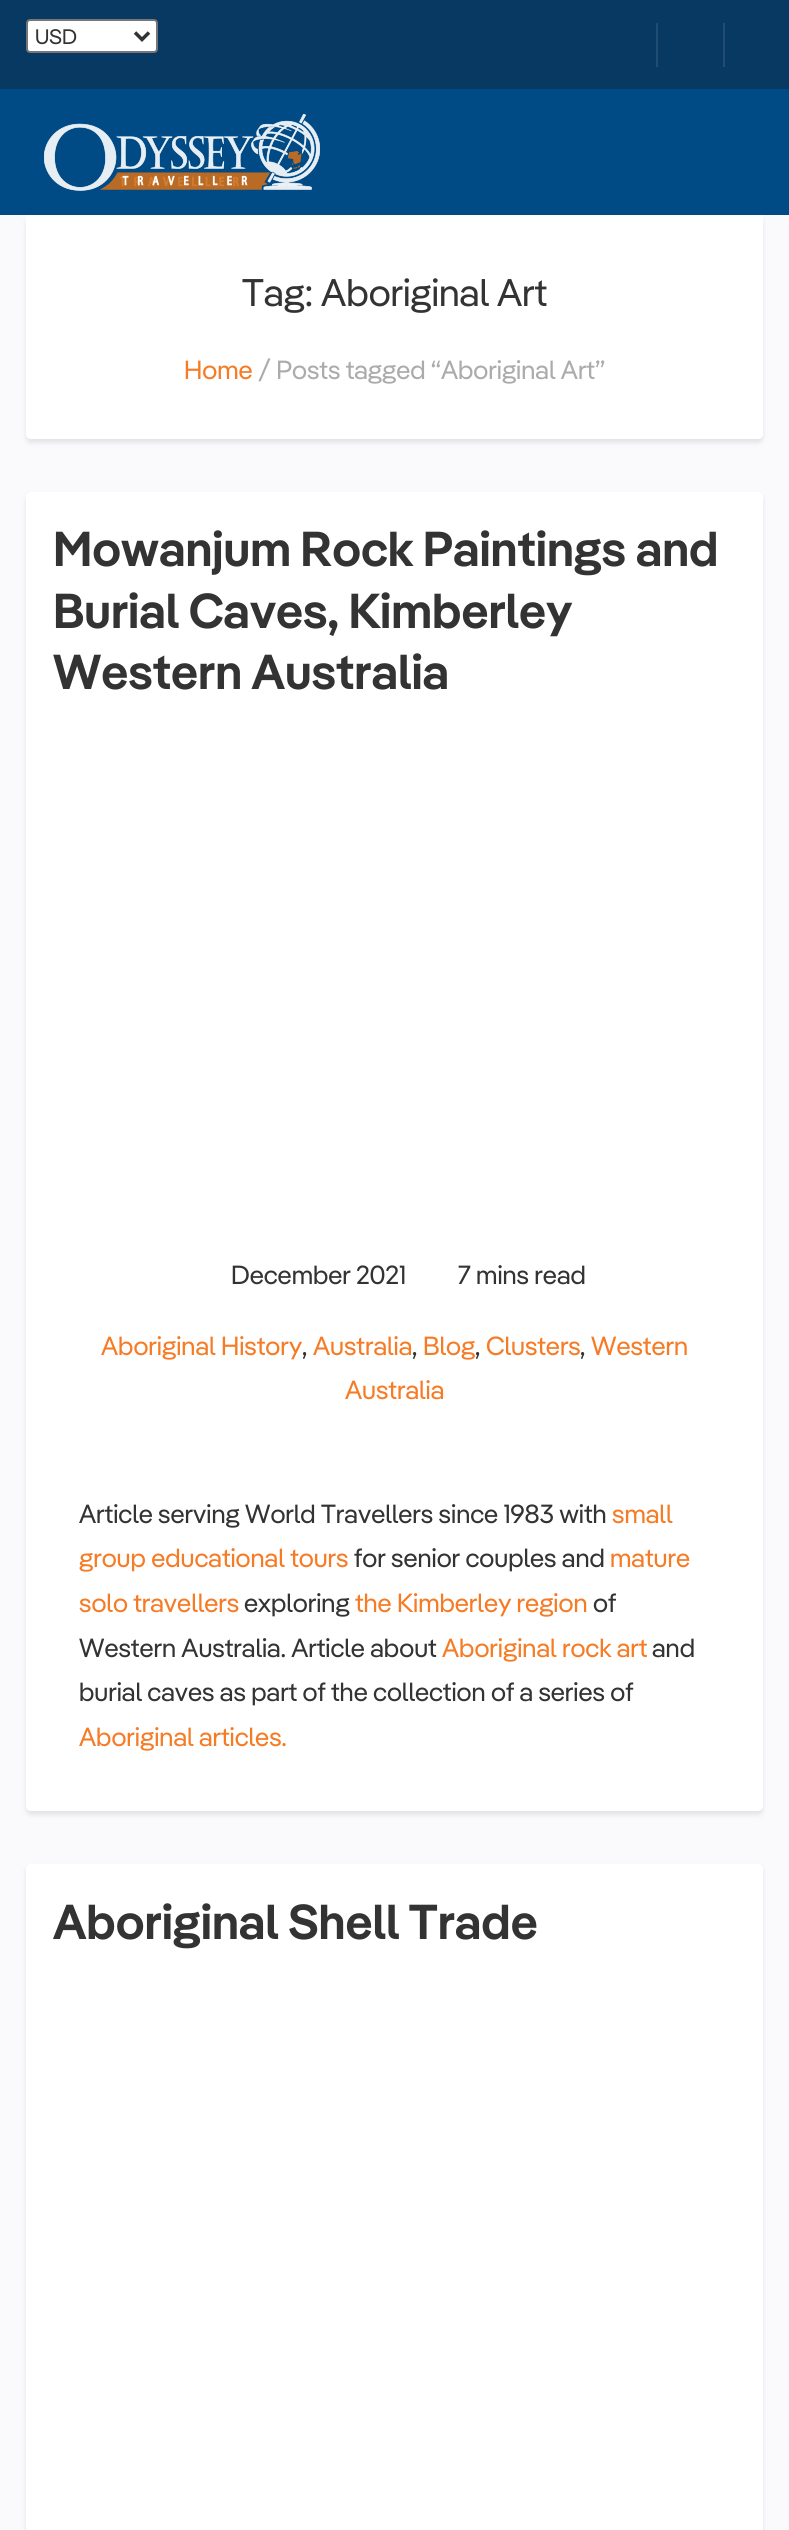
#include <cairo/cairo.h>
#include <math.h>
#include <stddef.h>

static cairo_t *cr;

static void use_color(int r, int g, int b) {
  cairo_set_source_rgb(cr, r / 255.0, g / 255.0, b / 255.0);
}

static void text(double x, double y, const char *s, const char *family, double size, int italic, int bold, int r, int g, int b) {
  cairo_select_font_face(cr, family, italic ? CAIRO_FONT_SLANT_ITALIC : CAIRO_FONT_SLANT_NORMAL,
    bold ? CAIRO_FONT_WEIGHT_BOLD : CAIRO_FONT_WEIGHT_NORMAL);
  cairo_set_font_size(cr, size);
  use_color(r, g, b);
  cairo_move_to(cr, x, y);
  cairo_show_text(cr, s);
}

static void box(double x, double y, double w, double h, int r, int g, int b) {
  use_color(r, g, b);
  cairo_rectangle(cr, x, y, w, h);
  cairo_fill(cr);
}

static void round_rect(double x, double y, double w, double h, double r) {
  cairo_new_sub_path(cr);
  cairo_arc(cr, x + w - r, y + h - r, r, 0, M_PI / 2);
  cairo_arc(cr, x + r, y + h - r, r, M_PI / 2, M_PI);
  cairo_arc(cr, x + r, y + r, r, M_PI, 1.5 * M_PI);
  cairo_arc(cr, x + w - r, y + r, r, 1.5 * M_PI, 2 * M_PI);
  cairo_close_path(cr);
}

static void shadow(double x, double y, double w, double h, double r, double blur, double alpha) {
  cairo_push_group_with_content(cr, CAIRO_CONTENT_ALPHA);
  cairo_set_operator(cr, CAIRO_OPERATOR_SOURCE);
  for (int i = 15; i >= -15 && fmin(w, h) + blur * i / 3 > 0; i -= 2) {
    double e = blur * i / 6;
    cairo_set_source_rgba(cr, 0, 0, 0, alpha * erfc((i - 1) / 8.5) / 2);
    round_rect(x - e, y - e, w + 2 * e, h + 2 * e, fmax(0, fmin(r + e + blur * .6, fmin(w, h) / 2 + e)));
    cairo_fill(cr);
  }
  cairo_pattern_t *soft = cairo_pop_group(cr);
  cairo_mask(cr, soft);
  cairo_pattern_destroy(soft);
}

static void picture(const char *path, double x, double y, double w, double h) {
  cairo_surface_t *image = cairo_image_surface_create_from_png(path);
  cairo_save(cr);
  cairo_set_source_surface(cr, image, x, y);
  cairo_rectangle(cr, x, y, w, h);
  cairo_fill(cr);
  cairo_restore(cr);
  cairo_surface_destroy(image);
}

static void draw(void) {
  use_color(250, 250, 253);
  cairo_paint(cr);
  box(0, 0, 789, 89, 8, 57, 98);
  use_color(255, 255, 255);
  round_rect(27, 20, 130, 32, 3);
  cairo_fill_preserve(cr);
  use_color(118, 118, 118);
  cairo_stroke(cr);
  cairo_new_path(cr);
  cairo_move_to(cr, 135, 32.5);
  cairo_line_to(cr, 142, 39.5);
  cairo_line_to(cr, 149, 32.5);
  use_color(51, 51, 51);
  cairo_set_line_width(cr, 3.5);
  cairo_stroke(cr);
  box(656, 23, 2, 44, 33, 77, 114);
  box(723, 23, 2, 44, 33, 77, 114);
  box(0, 89, 789, 126, 0, 75, 133);
  picture("img_01.png", 44, 114, 276, 77);
  use_color(0, 0, 0);
  shadow(26, 219, 737, 224, 5, 2.5, 0.09);
  use_color(255, 255, 255);
  cairo_new_path(cr);
  cairo_move_to(cr, 26, 215);
  cairo_line_to(cr, 763, 215);
  cairo_line_to(cr, 763, 434);
  cairo_curve_to(cr, 763, 437, 761, 439, 758, 439);
  cairo_line_to(cr, 31, 439);
  cairo_curve_to(cr, 28, 439, 26, 437, 26, 434);
  cairo_close_path(cr);
  cairo_fill(cr);
  use_color(0, 0, 0);
  shadow(26, 495, 737, 1320, 5, 2.5, 0.09);
  use_color(255, 255, 255);
  round_rect(26, 492, 737, 1319, 5);
  cairo_fill(cr);
  use_color(0, 0, 0);
  shadow(26, 1867, 737, 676, 5, 2.5, 0.09);
  use_color(255, 255, 255);
  round_rect(26, 1864, 737, 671, 5);
  cairo_fill(cr);
  text(35, 44, "USD", "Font", 21, 0, 0, 51, 51, 51);
  text(242, 306, "Tag: Aboriginal Art", "Font", 38.5, 0, 0, 51, 51, 51);
  text(184, 379, "Home", "Font", 26.25, 0, 0, 246, 123, 37);
  text(258, 379, "/ Posts tagged “Aboriginal Art”", "Font", 26.25, 0, 0, 171, 171, 171);
  text(53, 566, "Mowanjum Rock Paintings and", "Font SemiBold", 49, 0, 0, 51, 51, 51);
  text(53, 628, "Burial Caves, Kimberley", "Font SemiBold", 49, 0, 0, 51, 51, 51);
  text(53, 689, "Western Australia", "Font SemiBold", 49, 0, 0, 51, 51, 51);
  text(231, 1284, "December 2021", "Font", 26.25, 0, 0, 51, 51, 51);
  text(458, 1284, "7 mins read", "Font", 26.25, 0, 0, 51, 51, 51);
  text(101, 1355, "Aboriginal History", "Font", 26.25, 0, 0, 246, 123, 37);
  text(302, 1355, ",", "Font", 26.25, 0, 0, 51, 51, 51);
  text(313, 1355, "Australia", "Font", 26.25, 0, 0, 246, 123, 37);
  text(412, 1355, ",", "Font", 26.25, 0, 0, 51, 51, 51);
  text(423, 1355, "Blog", "Font", 26.25, 0, 0, 246, 123, 37);
  text(475, 1355, ",", "Font", 26.25, 0, 0, 51, 51, 51);
  text(486, 1355, "Clusters", "Font", 26.25, 0, 0, 246, 123, 37);
  text(580, 1355, ",", "Font", 26.25, 0, 0, 51, 51, 51);
  text(591, 1355, "Western", "Font", 26.25, 0, 0, 246, 123, 37);
  text(345, 1399, "Australia", "Font", 26.25, 0, 0, 246, 123, 37);
  text(79, 1523, "Article serving World Travellers since 1983 with", "Font", 26.25, 0, 0, 51, 51, 51);
  text(612, 1523, "small", "Font", 26.25, 0, 0, 246, 123, 37);
  text(79, 1567, "group educational tours", "Font", 26.25, 0, 0, 246, 123, 37);
  text(354, 1567, "for senior couples and", "Font", 26.25, 0, 0, 51, 51, 51);
  text(610, 1567, "mature", "Font", 26.25, 0, 0, 246, 123, 37);
  text(79, 1612, "solo travellers", "Font", 26.25, 0, 0, 246, 123, 37);
  text(244, 1612, "exploring", "Font", 26.25, 0, 0, 51, 51, 51);
  text(355, 1612, "the Kimberley region", "Font", 26.25, 0, 0, 246, 123, 37);
  text(593, 1612, "of", "Font", 26.25, 0, 0, 51, 51, 51);
  text(79, 1657, "Western Australia. Article about", "Font", 26.25, 0, 0, 51, 51, 51);
  text(442, 1657, "Aboriginal rock art", "Font", 26.25, 0, 0, 246, 123, 37);
  text(652, 1657, "and", "Font", 26.25, 0, 0, 51, 51, 51);
  text(79, 1701, "burial caves as part of the collection of a series of", "Font", 26.25, 0, 0, 51, 51, 51);
  text(79, 1746, "Aboriginal articles.", "Font", 26.25, 0, 0, 246, 123, 37);
  text(53, 1939, "Aboriginal Shell Trade", "Font SemiBold", 49, 0, 0, 51, 51, 51);
}

int main(void) {
  cairo_surface_t *surface = cairo_image_surface_create(CAIRO_FORMAT_RGB24, 789, 2530);
  cr = cairo_create(surface);
  cairo_font_options_t *options = cairo_font_options_create();
  cairo_font_options_set_hint_metrics(options, CAIRO_HINT_METRICS_OFF);
  cairo_font_options_set_hint_style(options, CAIRO_HINT_STYLE_NONE);
  cairo_set_font_options(cr, options);
  cairo_set_miter_limit(cr, 4);
  draw();
  cairo_surface_write_to_png(surface, "out.png");
  cairo_font_options_destroy(options);
  cairo_destroy(cr);
  cairo_surface_destroy(surface);
  return 0;
}
